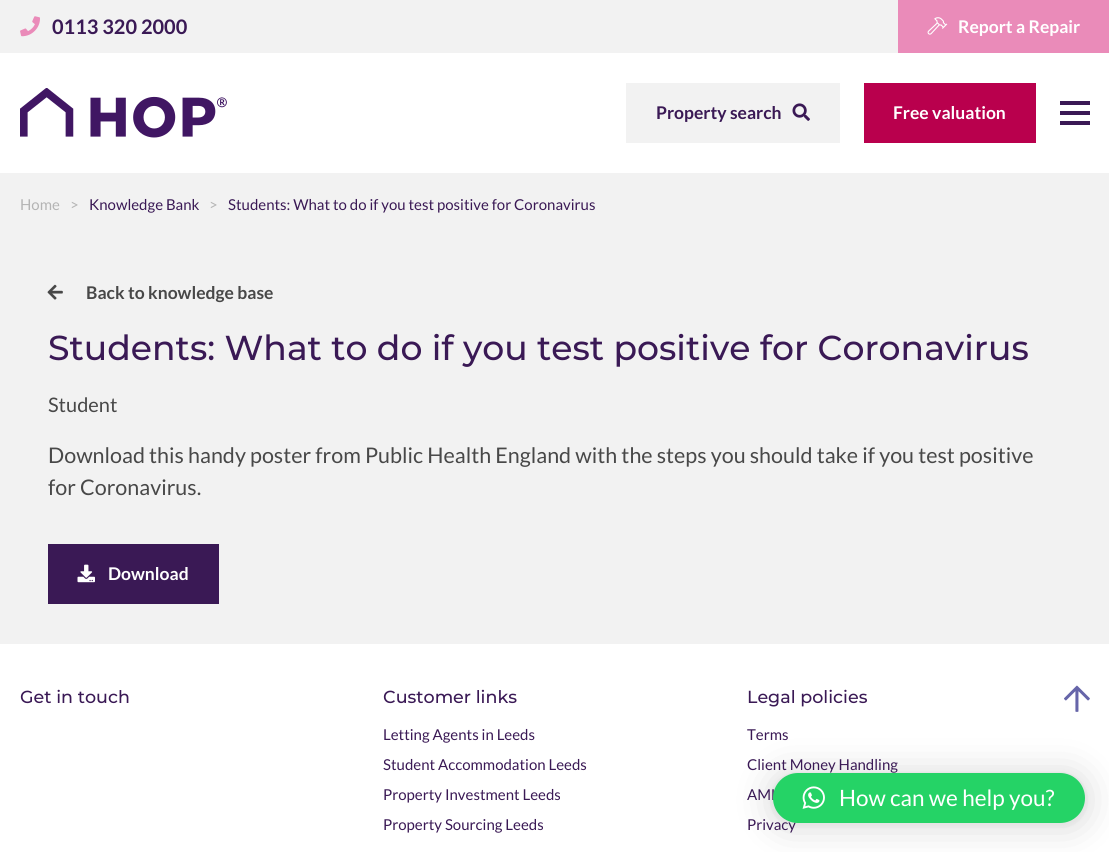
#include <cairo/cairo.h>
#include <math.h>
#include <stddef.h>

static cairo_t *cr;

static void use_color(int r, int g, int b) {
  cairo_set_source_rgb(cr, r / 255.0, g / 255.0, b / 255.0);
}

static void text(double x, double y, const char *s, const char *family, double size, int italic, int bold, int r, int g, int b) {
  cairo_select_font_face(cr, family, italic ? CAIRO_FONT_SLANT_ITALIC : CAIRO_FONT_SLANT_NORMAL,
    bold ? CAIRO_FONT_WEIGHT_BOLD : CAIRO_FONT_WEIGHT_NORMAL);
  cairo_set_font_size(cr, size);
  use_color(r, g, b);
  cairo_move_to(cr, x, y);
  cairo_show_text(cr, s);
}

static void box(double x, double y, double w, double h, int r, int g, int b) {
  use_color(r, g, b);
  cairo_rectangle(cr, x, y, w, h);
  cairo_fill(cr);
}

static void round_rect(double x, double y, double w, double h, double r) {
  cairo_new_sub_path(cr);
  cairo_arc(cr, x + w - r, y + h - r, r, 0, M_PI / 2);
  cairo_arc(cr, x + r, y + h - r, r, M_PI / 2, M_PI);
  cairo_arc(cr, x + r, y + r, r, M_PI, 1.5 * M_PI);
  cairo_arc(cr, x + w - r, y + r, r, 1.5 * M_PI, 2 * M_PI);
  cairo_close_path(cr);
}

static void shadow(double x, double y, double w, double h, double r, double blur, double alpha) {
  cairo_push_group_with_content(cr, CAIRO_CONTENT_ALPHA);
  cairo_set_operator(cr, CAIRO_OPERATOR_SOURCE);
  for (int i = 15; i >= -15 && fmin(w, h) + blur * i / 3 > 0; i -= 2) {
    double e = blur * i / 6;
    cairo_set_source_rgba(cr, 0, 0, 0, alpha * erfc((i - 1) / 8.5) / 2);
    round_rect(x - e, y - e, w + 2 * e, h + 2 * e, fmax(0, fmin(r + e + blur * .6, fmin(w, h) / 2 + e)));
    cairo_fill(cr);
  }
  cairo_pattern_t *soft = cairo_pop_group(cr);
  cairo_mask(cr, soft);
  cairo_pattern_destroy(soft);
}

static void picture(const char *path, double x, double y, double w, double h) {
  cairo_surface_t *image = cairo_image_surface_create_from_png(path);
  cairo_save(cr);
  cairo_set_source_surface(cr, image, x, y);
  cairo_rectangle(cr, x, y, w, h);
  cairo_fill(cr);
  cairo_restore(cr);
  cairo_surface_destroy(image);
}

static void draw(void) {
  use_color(242, 242, 242);
  cairo_paint(cr);
  picture("img_01.png", 20, 16, 20, 21);
  box(898, 0, 211, 53, 234, 139, 185);
  picture("img_02.png", 927, 17, 21, 18);
  box(0, 53, 1109, 120, 255, 255, 255);
  picture("img_03.png", 20, 88, 207, 50);
  box(626, 83, 214, 60, 242, 242, 242);
  picture("img_04.png", 792, 103, 18, 18);
  box(864, 83, 172, 60, 185, 0, 77);
  box(1060, 111, 30, 4, 58, 25, 85);
  box(1060, 101, 30, 4, 58, 25, 85);
  box(1060, 121, 30, 4, 58, 25, 85);
  picture("img_05.png", 47, 284, 16, 16);
  box(48, 544, 171, 60, 58, 25, 85);
  picture("img_06.png", 77, 564, 18, 19);
  box(0, 644, 1109, 208, 255, 255, 255);
  picture("img_07.png", 1064, 685, 26, 27);
  use_color(0, 0, 0);
  shadow(773, 775, 312, 50, 25, 20, 0.16);
  shadow(773, 774, 312, 50, 25, 4, 0.06);
  text(52, 34, "0113 320 2000", "Lato", 20, 0, 1, 58, 25, 85);
  text(958, 33, "Report a Repair", "Lato", 17.5, 0, 1, 255, 255, 255);
  text(656, 119, "Property search", "Lato", 17.5, 0, 1, 58, 25, 85);
  text(893, 119, "Free valuation", "Lato", 17.5, 0, 1, 255, 255, 255);
  text(20, 210, "Home", "Lato", 15, 0, 0, 180, 180, 180);
  text(70, 210, ">", "Lato", 15, 0, 0, 180, 180, 180);
  text(89, 210, "Knowledge Bank", "Lato", 15, 0, 0, 58, 25, 85);
  text(209, 210, ">", "Lato", 15, 0, 0, 180, 180, 180);
  text(228, 210, "Students: What to do if you test positive for Coronavirus", "Lato", 15, 0, 0, 58, 25, 85);
  text(86, 299, "Back to knowledge base", "Lato", 17.5, 0, 1, 72, 72, 72);
  text(48, 360, "Students: What to do if you test positive for Coronavirus", "Montserrat Medium", 34.6, 0, 0, 58, 25, 85);
  text(48, 412, "Student", "Lato", 20, 0, 0, 72, 72, 72);
  text(48, 463, "Download this handy poster from Public Health England with the steps you should take if you test positive", "Lato", 21.5, 0, 0, 72, 72, 72);
  text(48, 495, "for Coronavirus.", "Lato", 21.5, 0, 0, 72, 72, 72);
  text(108, 580, "Download", "Lato", 17.5, 0, 1, 255, 255, 255);
  text(20, 703, "Get in touch", "Montserrat Medium", 17.5, 0, 0, 58, 25, 85);
  text(383, 703, "Customer links", "Montserrat Medium", 17.5, 0, 0, 58, 25, 85);
  text(383, 740, "Letting Agents in Leeds", "Lato", 15, 0, 0, 58, 25, 85);
  text(383, 770, "Student Accommodation Leeds", "Lato", 15, 0, 0, 58, 25, 85);
  text(383, 800, "Property Investment Leeds", "Lato", 15, 0, 0, 58, 25, 85);
  text(383, 830, "Property Sourcing Leeds", "Lato", 15, 0, 0, 58, 25, 85);
  text(747, 703, "Legal policies", "Montserrat Medium", 17.5, 0, 0, 58, 25, 85);
  text(747, 740, "Terms", "Lato", 15, 0, 0, 58, 25, 85);
  text(747, 770, "Client Money Handling", "Lato", 15, 0, 0, 58, 25, 85);
  text(747, 800, "AML", "Lato", 15, 0, 0, 58, 25, 85);
  text(747, 830, "Privacy", "Lato", 15, 0, 0, 58, 25, 85);
  use_color(37, 211, 102);
  round_rect(773, 773, 312, 50, 25);
  cairo_fill(cr);
  picture("img_08.png", 802, 786, 23, 23);
  text(839, 806, "How can we help you?", "Lato", 22.5, 0, 0, 255, 255, 255);
}

int main(void) {
  cairo_surface_t *surface = cairo_image_surface_create(CAIRO_FORMAT_RGB24, 1109, 852);
  cr = cairo_create(surface);
  cairo_font_options_t *options = cairo_font_options_create();
  cairo_font_options_set_hint_metrics(options, CAIRO_HINT_METRICS_OFF);
  cairo_font_options_set_hint_style(options, CAIRO_HINT_STYLE_NONE);
  cairo_set_font_options(cr, options);
  cairo_set_miter_limit(cr, 4);
  draw();
  cairo_surface_write_to_png(surface, "out.png");
  cairo_font_options_destroy(options);
  cairo_destroy(cr);
  cairo_surface_destroy(surface);
  return 0;
}
